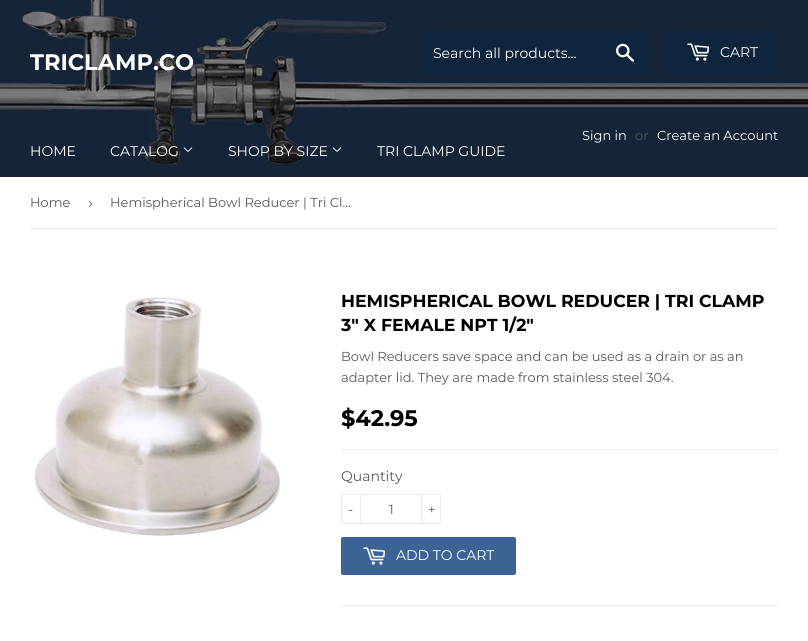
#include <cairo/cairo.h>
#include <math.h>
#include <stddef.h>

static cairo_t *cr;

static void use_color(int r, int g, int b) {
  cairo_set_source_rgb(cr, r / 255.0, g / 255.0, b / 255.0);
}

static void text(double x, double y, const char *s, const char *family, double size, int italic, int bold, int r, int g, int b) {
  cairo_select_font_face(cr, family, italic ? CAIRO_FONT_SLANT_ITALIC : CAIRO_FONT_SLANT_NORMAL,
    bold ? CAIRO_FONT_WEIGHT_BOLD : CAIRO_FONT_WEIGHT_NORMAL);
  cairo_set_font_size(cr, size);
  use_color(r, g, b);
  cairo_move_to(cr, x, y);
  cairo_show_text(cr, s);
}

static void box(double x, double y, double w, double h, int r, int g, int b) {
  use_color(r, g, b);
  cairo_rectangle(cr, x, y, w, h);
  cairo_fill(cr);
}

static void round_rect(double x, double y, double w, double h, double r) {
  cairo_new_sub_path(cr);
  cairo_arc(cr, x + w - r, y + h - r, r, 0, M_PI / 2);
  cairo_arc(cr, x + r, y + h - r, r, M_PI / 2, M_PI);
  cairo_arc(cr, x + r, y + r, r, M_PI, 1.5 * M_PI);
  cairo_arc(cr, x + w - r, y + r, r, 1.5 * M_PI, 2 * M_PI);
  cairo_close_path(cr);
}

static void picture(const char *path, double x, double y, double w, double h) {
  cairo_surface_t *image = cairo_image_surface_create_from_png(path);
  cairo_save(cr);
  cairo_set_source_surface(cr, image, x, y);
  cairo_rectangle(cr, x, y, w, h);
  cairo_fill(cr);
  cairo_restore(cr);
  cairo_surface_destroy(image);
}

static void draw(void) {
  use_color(255, 255, 255);
  cairo_paint(cr);
  picture("img_01.png", 0, 0, 808, 177);
  use_color(15, 36, 61);
  round_rect(423, 31, 224, 44, 2);
  cairo_fill(cr);
  picture("img_02.png", 616, 43, 18, 19);
  round_rect(666, 31, 112, 44, 2);
  cairo_fill(cr);
  picture("img_03.png", 687, 43, 23, 18);
  picture("img_04.png", 183, 147, 10, 5);
  picture("img_05.png", 332, 147, 10, 5);
  box(30, 228, 748, 1, 236, 236, 236);
  picture("img_06.png", 34, 296, 246, 240);
  box(341, 449, 437, 1, 236, 236, 236);
  round_rect(341.5, 494.5, 99, 29, 1.5);
  cairo_set_line_width(cr, 1);
  cairo_stroke(cr);
  box(360, 494, 1, 30, 236, 236, 236);
  box(421, 494, 1, 30, 236, 236, 236);
  use_color(59, 99, 148);
  round_rect(341, 537, 175, 38, 2);
  cairo_fill(cr);
  picture("img_07.png", 363, 547, 23, 18);
  box(341, 605, 437, 1, 236, 236, 236);
  text(30, 70, "TRICLAMP.CO", "Montserrat", 22.5, 0, 1, 255, 255, 255);
  text(433, 58, "Search all products...", "Montserrat", 14, 0, 0, 255, 255, 255);
  text(720, 57, "CART", "Montserrat", 14, 0, 0, 255, 255, 255);
  text(582, 140, "Sign in", "Montserrat", 13, 0, 0, 255, 255, 255);
  text(635, 140, "or", "Montserrat", 13, 0, 0, 88, 88, 88);
  text(657, 140, "Create an Account", "Montserrat", 13, 0, 0, 255, 255, 255);
  text(30, 156, "HOME", "Montserrat", 14, 0, 0, 255, 255, 255);
  text(110, 156, "CATALOG", "Montserrat", 14, 0, 0, 255, 255, 255);
  text(228, 156, "SHOP BY SIZE", "Montserrat", 14, 0, 0, 255, 255, 255);
  text(377, 156, "TRI CLAMP GUIDE", "Montserrat", 14, 0, 0, 255, 255, 255);
  text(30, 207, "Home", "Montserrat", 13, 0, 0, 88, 88, 88);
  text(88, 208, "›", "Liberation Sans", 15, 0, 0, 118, 118, 118);
  text(110, 207, "Hemispherical Bowl Reducer | Tri Cl…", "Montserrat", 13, 0, 0, 88, 88, 88);
  text(341, 307, "HEMISPHERICAL BOWL REDUCER | TRI CLAMP", "Montserrat", 17.3, 0, 1, 0, 0, 0);
  text(341, 331, "3\" X FEMALE NPT 1/2\"", "Montserrat", 17.3, 0, 1, 0, 0, 0);
  text(341, 361, "Bowl Reducers save space and can be used as a drain or as an", "Montserrat", 13, 0, 0, 88, 88, 88);
  text(341, 382, "adapter lid. They are made from stainless steel 304.", "Montserrat", 13, 0, 0, 88, 88, 88);
  text(341, 426, "$42.95", "Montserrat", 22.5, 0, 1, 0, 0, 0);
  text(341, 481, "Quantity", "Montserrat", 14, 0, 0, 88, 88, 88);
  text(348, 514, "-", "Montserrat", 13, 0, 0, 88, 88, 88);
  text(389, 514, "1", "Montserrat", 13, 0, 0, 88, 88, 88);
  text(428, 514, "+", "Montserrat", 13, 0, 0, 88, 88, 88);
  text(396, 560, "ADD TO CART", "Montserrat", 14, 0, 0, 255, 255, 255);
}

int main(void) {
  cairo_surface_t *surface = cairo_image_surface_create(CAIRO_FORMAT_RGB24, 808, 641);
  cr = cairo_create(surface);
  cairo_font_options_t *options = cairo_font_options_create();
  cairo_font_options_set_hint_metrics(options, CAIRO_HINT_METRICS_OFF);
  cairo_font_options_set_hint_style(options, CAIRO_HINT_STYLE_NONE);
  cairo_set_font_options(cr, options);
  cairo_set_miter_limit(cr, 4);
  draw();
  cairo_surface_write_to_png(surface, "out.png");
  cairo_font_options_destroy(options);
  cairo_destroy(cr);
  cairo_surface_destroy(surface);
  return 0;
}
